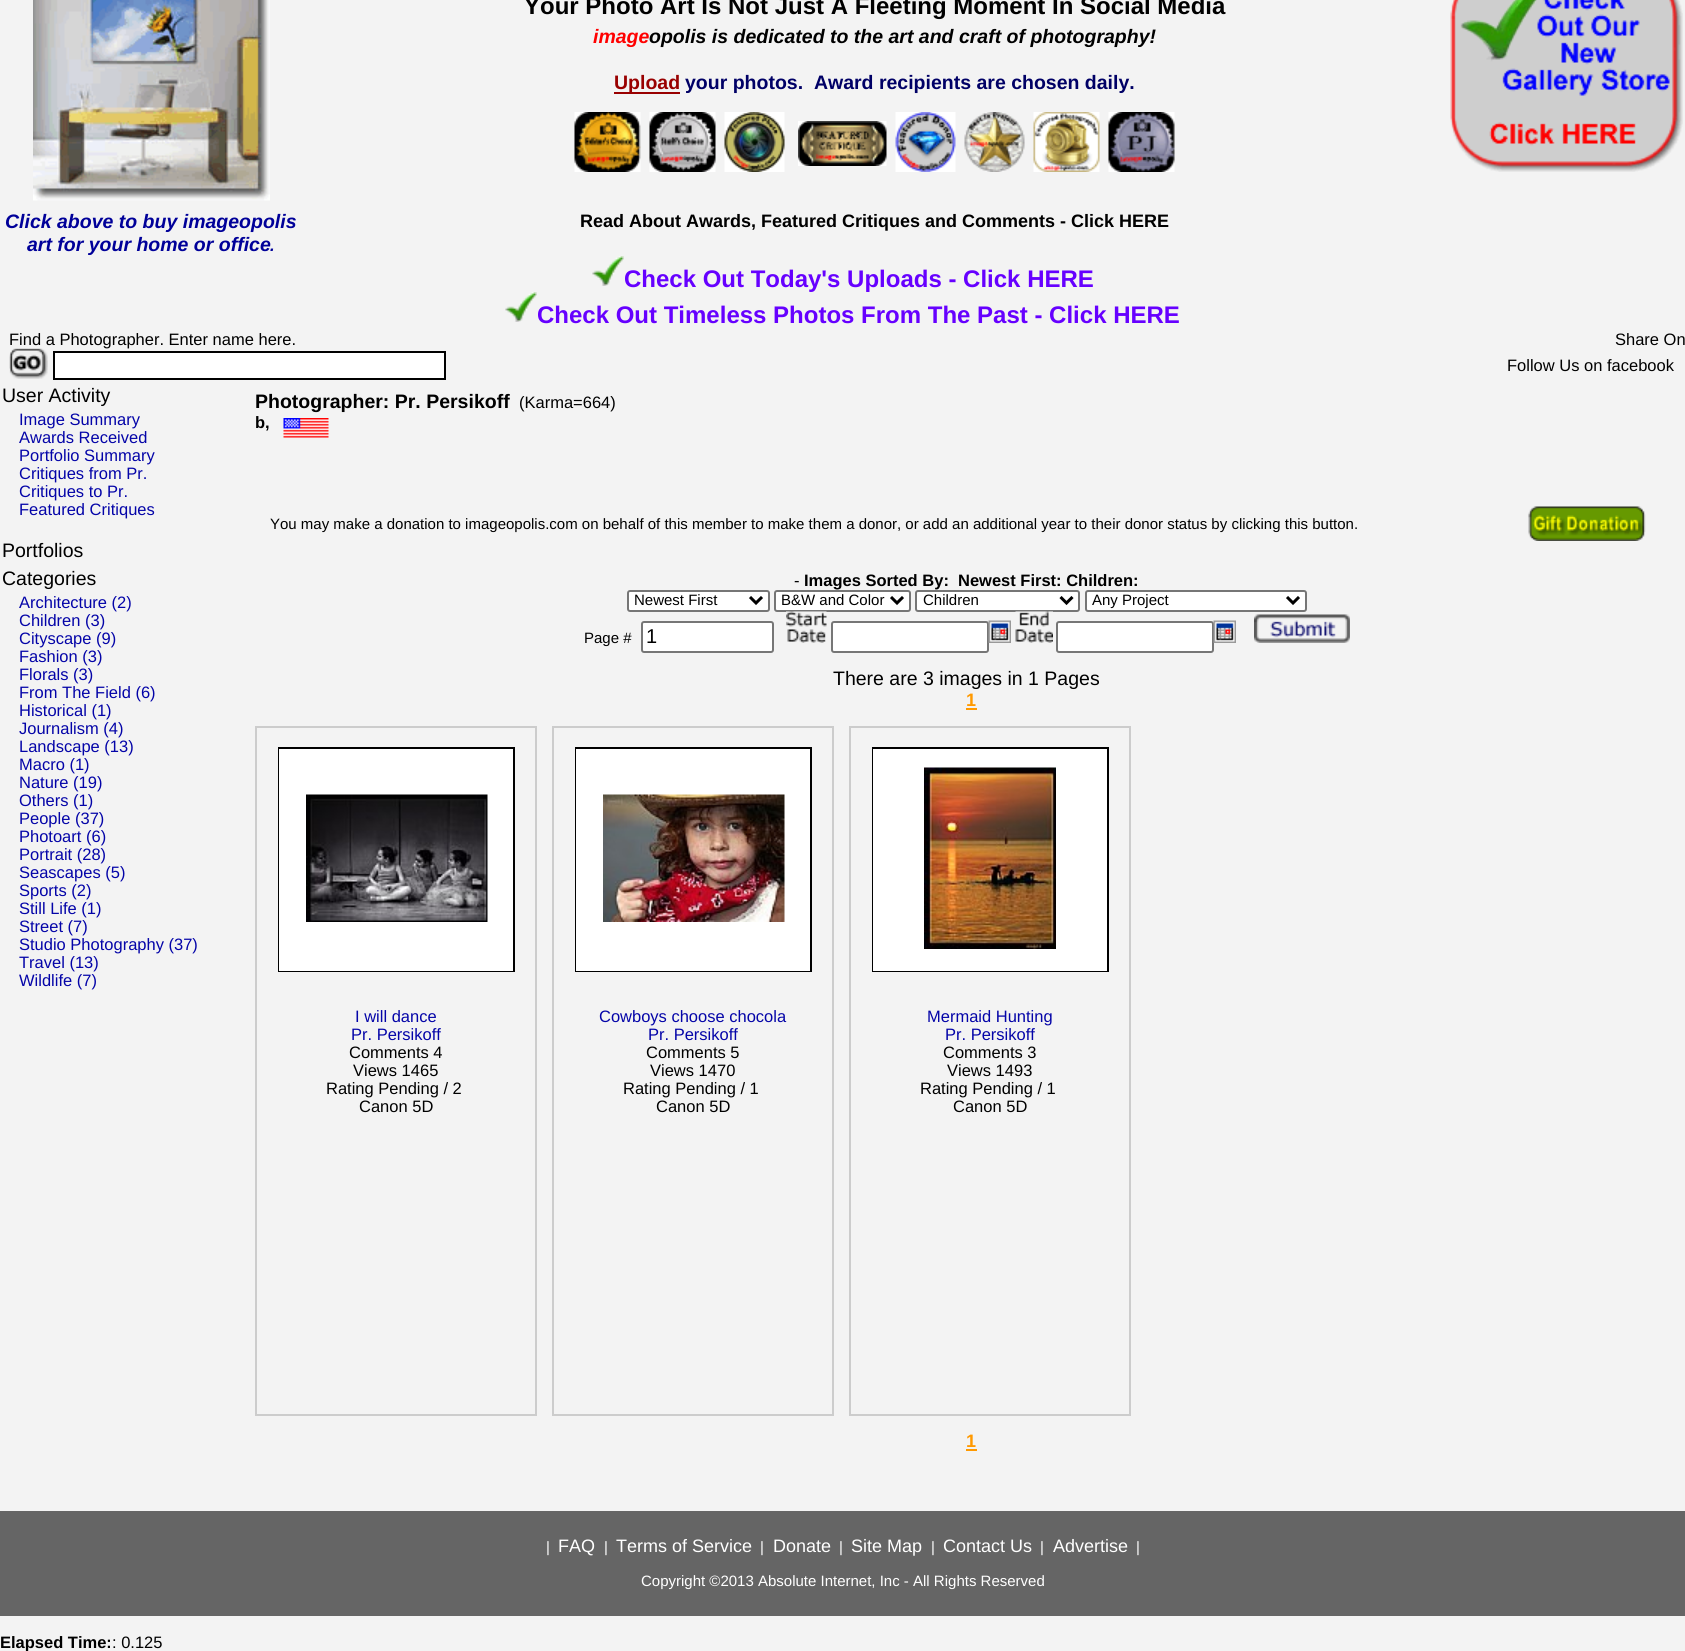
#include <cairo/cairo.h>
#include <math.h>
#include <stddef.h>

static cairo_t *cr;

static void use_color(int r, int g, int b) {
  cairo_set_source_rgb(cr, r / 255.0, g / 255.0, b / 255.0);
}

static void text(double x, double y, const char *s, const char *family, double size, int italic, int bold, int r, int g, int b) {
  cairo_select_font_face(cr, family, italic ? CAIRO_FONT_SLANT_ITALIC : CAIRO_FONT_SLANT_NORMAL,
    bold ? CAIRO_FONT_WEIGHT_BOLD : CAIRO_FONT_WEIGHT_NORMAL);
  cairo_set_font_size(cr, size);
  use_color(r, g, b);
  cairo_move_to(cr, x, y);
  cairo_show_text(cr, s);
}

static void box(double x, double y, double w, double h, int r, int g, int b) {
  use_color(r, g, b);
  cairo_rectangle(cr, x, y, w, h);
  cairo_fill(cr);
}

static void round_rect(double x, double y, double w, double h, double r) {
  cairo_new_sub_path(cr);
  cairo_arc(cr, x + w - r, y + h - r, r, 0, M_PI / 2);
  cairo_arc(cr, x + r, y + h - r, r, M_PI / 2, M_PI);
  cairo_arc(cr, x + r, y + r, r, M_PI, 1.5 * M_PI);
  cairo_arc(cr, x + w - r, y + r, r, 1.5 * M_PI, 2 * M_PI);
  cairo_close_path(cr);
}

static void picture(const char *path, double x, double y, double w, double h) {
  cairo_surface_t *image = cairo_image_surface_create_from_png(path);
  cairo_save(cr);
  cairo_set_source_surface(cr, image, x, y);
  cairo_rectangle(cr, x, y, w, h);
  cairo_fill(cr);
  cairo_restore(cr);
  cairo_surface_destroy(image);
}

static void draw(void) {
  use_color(243, 243, 243);
  cairo_paint(cr);
  picture("img_01.png", 33, 0, 237, 201);
  box(614, 92, 66, 2, 153, 0, 0);
  picture("img_02.png", 574, 112, 67, 60);
  picture("img_03.png", 649, 112, 67, 60);
  picture("img_04.png", 724, 112, 61, 60);
  picture("img_05.png", 798, 121, 89, 45);
  picture("img_06.png", 895, 112, 61, 60);
  picture("img_07.png", 964, 112, 61, 60);
  picture("img_08.png", 1033, 112, 67, 60);
  picture("img_09.png", 1108, 112, 67, 60);
  picture("img_10.png", 1450, 0, 233, 172);
  picture("img_11.png", 592, 256, 32, 30);
  picture("img_11.png", 505, 292, 32, 30);
  use_color(255, 255, 255);
  cairo_rectangle(cr, 54, 352, 391, 27);
  cairo_fill_preserve(cr);
  use_color(0, 0, 0);
  cairo_stroke(cr);
  picture("img_13.png", 283, 418, 46, 20);
  picture("img_14.png", 1528, 506, 118, 35);
  use_color(255, 255, 255);
  round_rect(628, 591, 141, 20, 2);
  cairo_fill_preserve(cr);
  use_color(118, 118, 118);
  cairo_stroke(cr);
  cairo_new_path(cr);
  cairo_move_to(cr, 750, 597);
  cairo_line_to(cr, 756, 603);
  cairo_line_to(cr, 762, 597);
  use_color(0, 0, 0);
  cairo_set_line_width(cr, 3);
  cairo_stroke(cr);
  use_color(255, 255, 255);
  round_rect(775, 591, 135, 20, 2);
  cairo_fill_preserve(cr);
  use_color(118, 118, 118);
  cairo_set_line_width(cr, 2);
  cairo_stroke(cr);
  cairo_new_path(cr);
  cairo_move_to(cr, 891, 597);
  cairo_line_to(cr, 897, 603);
  cairo_line_to(cr, 903, 597);
  use_color(0, 0, 0);
  cairo_set_line_width(cr, 3);
  cairo_stroke(cr);
  use_color(255, 255, 255);
  round_rect(916, 591, 163, 20, 2);
  cairo_fill_preserve(cr);
  use_color(118, 118, 118);
  cairo_set_line_width(cr, 2);
  cairo_stroke(cr);
  cairo_new_path(cr);
  cairo_move_to(cr, 1060.5, 597);
  cairo_line_to(cr, 1066.5, 603);
  cairo_line_to(cr, 1072.5, 597);
  use_color(0, 0, 0);
  cairo_set_line_width(cr, 3);
  cairo_stroke(cr);
  use_color(255, 255, 255);
  round_rect(1086, 591, 220, 20, 2);
  cairo_fill_preserve(cr);
  use_color(118, 118, 118);
  cairo_set_line_width(cr, 2);
  cairo_stroke(cr);
  cairo_new_path(cr);
  cairo_move_to(cr, 1287, 597);
  cairo_line_to(cr, 1293, 603);
  cairo_line_to(cr, 1299, 597);
  use_color(0, 0, 0);
  cairo_set_line_width(cr, 3);
  cairo_stroke(cr);
  use_color(255, 255, 255);
  round_rect(642, 622, 131, 30, 2);
  cairo_fill_preserve(cr);
  use_color(118, 118, 118);
  cairo_set_line_width(cr, 2);
  cairo_stroke(cr);
  picture("img_15.png", 786, 611, 41, 32);
  use_color(255, 255, 255);
  round_rect(832, 622, 156, 30, 2);
  cairo_fill_preserve(cr);
  use_color(118, 118, 118);
  cairo_stroke(cr);
  picture("img_16.png", 988, 620, 23, 23);
  picture("img_17.png", 1015, 611, 38, 32);
  use_color(255, 255, 255);
  round_rect(1057, 622, 156, 30, 2);
  cairo_fill_preserve(cr);
  use_color(118, 118, 118);
  cairo_stroke(cr);
  picture("img_16.png", 1213, 620, 23, 23);
  picture("img_18.png", 1254, 614, 96, 29);
  box(966, 708, 11, 2, 255, 153, 0);
  cairo_rectangle(cr, 256, 727, 280, 688);
  use_color(204, 204, 204);
  cairo_stroke(cr);
  box(278, 747, 237, 225, 0, 0, 0);
  box(279, 749, 234, 222, 255, 255, 255);
  picture("img_19.png", 306, 794, 182, 128);
  cairo_rectangle(cr, 553, 727, 280, 688);
  use_color(204, 204, 204);
  cairo_stroke(cr);
  box(575, 747, 237, 225, 0, 0, 0);
  box(576, 749, 234, 222, 255, 255, 255);
  picture("img_20.png", 603, 794, 182, 128);
  cairo_rectangle(cr, 850, 727, 280, 688);
  use_color(204, 204, 204);
  cairo_stroke(cr);
  box(872, 747, 237, 225, 0, 0, 0);
  box(873, 749, 234, 222, 255, 255, 255);
  picture("img_21.png", 924, 767, 132, 182);
  box(966, 1449, 11, 2, 255, 153, 0);
  box(0, 1511, 1685, 105, 101, 101, 101);
  text(524, 14, "Your Photo Art Is Not Just A Fleeting Moment In Social Media", "Liberation Sans", 24, 0, 1, 0, 0, 0);
  text(593, 43, "image", "Liberation Sans", 19.5, 1, 1, 255, 0, 0);
  text(649, 43, "opolis is dedicated to the art and craft of photography!", "Liberation Sans", 19.5, 1, 1, 0, 0, 0);
  text(614, 89, "Upload", "Liberation Sans", 19.5, 0, 1, 153, 0, 0);
  text(685, 89, "your photos.  Award recipients are chosen daily.", "Liberation Sans", 19.5, 0, 1, 0, 0, 102);
  text(5, 228, "Click above to buy imageopolis", "Liberation Sans", 19.5, 1, 1, 0, 0, 153);
  text(27, 251, "art for your home or office", "Liberation Sans", 19.5, 1, 1, 0, 0, 153);
  text(270, 251, ".", "Liberation Sans", 16.5, 1, 1, 0, 0, 153);
  text(580, 227, "Read About Awards, Featured Critiques and Comments - Click HERE", "Liberation Sans", 18, 0, 1, 0, 0, 0);
  text(624, 287, "Check Out Today's Uploads - Click HERE", "Liberation Sans", 24, 0, 1, 102, 0, 255);
  text(537, 323, "Check Out Timeless Photos From The Past - Click HERE", "Liberation Sans", 24, 0, 1, 102, 0, 255);
  text(9, 345, "Find a Photographer. Enter name here.", "Liberation Sans", 16.5, 0, 0, 0, 0, 0);
  picture("img_12.png", 9, 348, 39, 31);
  text(1615, 345, "Share On", "Liberation Sans", 16.5, 0, 0, 0, 0, 0);
  text(1507, 371, "Follow Us on facebook", "Liberation Sans", 16.5, 0, 0, 0, 0, 0);
  text(2, 402, "User Activity", "Liberation Sans", 19.5, 0, 0, 0, 0, 0);
  text(19, 425, "Image Summary", "Liberation Sans", 16.5, 0, 0, 4, 4, 168);
  text(19, 443, "Awards Received", "Liberation Sans", 16.5, 0, 0, 4, 4, 168);
  text(19, 461, "Portfolio Summary", "Liberation Sans", 16.5, 0, 0, 4, 4, 168);
  text(19, 479, "Critiques from Pr.", "Liberation Sans", 16.5, 0, 0, 4, 4, 168);
  text(19, 497, "Critiques to Pr.", "Liberation Sans", 16.5, 0, 0, 4, 4, 168);
  text(19, 515, "Featured Critiques", "Liberation Sans", 16.5, 0, 0, 4, 4, 168);
  text(2, 557, "Portfolios", "Liberation Sans", 19.5, 0, 0, 0, 0, 0);
  text(2, 585, "Categories", "Liberation Sans", 19.5, 0, 0, 0, 0, 0);
  text(19, 608, "Architecture (2)", "Liberation Sans", 16.5, 0, 0, 4, 4, 168);
  text(19, 626, "Children (3)", "Liberation Sans", 16.5, 0, 0, 4, 4, 168);
  text(19, 644, "Cityscape (9)", "Liberation Sans", 16.5, 0, 0, 4, 4, 168);
  text(19, 662, "Fashion (3)", "Liberation Sans", 16.5, 0, 0, 4, 4, 168);
  text(19, 680, "Florals (3)", "Liberation Sans", 16.5, 0, 0, 4, 4, 168);
  text(19, 698, "From The Field (6)", "Liberation Sans", 16.5, 0, 0, 4, 4, 168);
  text(19, 716, "Historical (1)", "Liberation Sans", 16.5, 0, 0, 4, 4, 168);
  text(19, 734, "Journalism (4)", "Liberation Sans", 16.5, 0, 0, 4, 4, 168);
  text(19, 752, "Landscape (13)", "Liberation Sans", 16.5, 0, 0, 4, 4, 168);
  text(19, 770, "Macro (1)", "Liberation Sans", 16.5, 0, 0, 4, 4, 168);
  text(19, 788, "Nature (19)", "Liberation Sans", 16.5, 0, 0, 4, 4, 168);
  text(19, 806, "Others (1)", "Liberation Sans", 16.5, 0, 0, 4, 4, 168);
  text(19, 824, "People (37)", "Liberation Sans", 16.5, 0, 0, 4, 4, 168);
  text(19, 842, "Photoart (6)", "Liberation Sans", 16.5, 0, 0, 4, 4, 168);
  text(19, 860, "Portrait (28)", "Liberation Sans", 16.5, 0, 0, 4, 4, 168);
  text(19, 878, "Seascapes (5)", "Liberation Sans", 16.5, 0, 0, 4, 4, 168);
  text(19, 896, "Sports (2)", "Liberation Sans", 16.5, 0, 0, 4, 4, 168);
  text(19, 914, "Still Life (1)", "Liberation Sans", 16.5, 0, 0, 4, 4, 168);
  text(19, 932, "Street (7)", "Liberation Sans", 16.5, 0, 0, 4, 4, 168);
  text(19, 950, "Studio Photography (37)", "Liberation Sans", 16.5, 0, 0, 4, 4, 168);
  text(19, 968, "Travel (13)", "Liberation Sans", 16.5, 0, 0, 4, 4, 168);
  text(19, 986, "Wildlife (7)", "Liberation Sans", 16.5, 0, 0, 4, 4, 168);
  text(255, 408, "Photographer: Pr. Persikoff", "Liberation Sans", 19.5, 0, 1, 0, 0, 0);
  text(519, 408, "(Karma=664)", "Liberation Sans", 16.5, 0, 0, 0, 0, 0);
  text(255, 428, "b,", "Liberation Sans", 16.5, 0, 1, 0, 0, 0);
  text(270, 529, "You may make a donation to imageopolis.com on behalf of this member to make them a donor, or add an additional year to their donor status by clicking this button.", "Liberation Sans", 15, 0, 0, 0, 0, 0);
  text(794, 586, "-", "Liberation Sans", 16.5, 0, 0, 0, 0, 0);
  text(804, 586, "Images Sorted By:", "Liberation Sans", 16.5, 0, 1, 0, 0, 0);
  text(958, 586, "Newest First: Children:", "Liberation Sans", 16.5, 0, 1, 0, 0, 0);
  text(634, 605, "Newest First", "Liberation Sans", 15, 0, 0, 0, 0, 0);
  text(781, 605, "B&W and Color", "Liberation Sans", 15, 0, 0, 0, 0, 0);
  text(923, 605, "Children", "Liberation Sans", 15, 0, 0, 0, 0, 0);
  text(1092, 605, "Any Project", "Liberation Sans", 15, 0, 0, 0, 0, 0);
  text(584, 643, "Page #", "Liberation Sans", 15, 0, 0, 0, 0, 0);
  text(646, 643, "1", "Liberation Sans", 20, 0, 0, 0, 0, 0);
  text(833, 685, "There are 3 images in 1 Pages", "Liberation Sans", 19.5, 0, 0, 0, 0, 0);
  text(966, 706, "1", "Liberation Sans", 18, 0, 1, 255, 153, 0);
  text(355, 1022, "I will dance", "Liberation Sans", 16.5, 0, 0, 4, 4, 168);
  text(351, 1040, "Pr. Persikoff", "Liberation Sans", 16.5, 0, 0, 4, 4, 168);
  text(349, 1058, "Comments 4", "Liberation Sans", 16.5, 0, 0, 0, 0, 0);
  text(353, 1076, "Views 1465", "Liberation Sans", 16.5, 0, 0, 0, 0, 0);
  text(326, 1094, "Rating Pending / 2", "Liberation Sans", 16.5, 0, 0, 0, 0, 0);
  text(359, 1112, "Canon 5D", "Liberation Sans", 16.5, 0, 0, 0, 0, 0);
  text(599, 1022, "Cowboys choose chocola", "Liberation Sans", 16.5, 0, 0, 4, 4, 168);
  text(648, 1040, "Pr. Persikoff", "Liberation Sans", 16.5, 0, 0, 4, 4, 168);
  text(646, 1058, "Comments 5", "Liberation Sans", 16.5, 0, 0, 0, 0, 0);
  text(650, 1076, "Views 1470", "Liberation Sans", 16.5, 0, 0, 0, 0, 0);
  text(623, 1094, "Rating Pending / 1", "Liberation Sans", 16.5, 0, 0, 0, 0, 0);
  text(656, 1112, "Canon 5D", "Liberation Sans", 16.5, 0, 0, 0, 0, 0);
  text(927, 1022, "Mermaid Hunting", "Liberation Sans", 16.5, 0, 0, 4, 4, 168);
  text(945, 1040, "Pr. Persikoff", "Liberation Sans", 16.5, 0, 0, 4, 4, 168);
  text(943, 1058, "Comments 3", "Liberation Sans", 16.5, 0, 0, 0, 0, 0);
  text(947, 1076, "Views 1493", "Liberation Sans", 16.5, 0, 0, 0, 0, 0);
  text(920, 1094, "Rating Pending / 1", "Liberation Sans", 16.5, 0, 0, 0, 0, 0);
  text(953, 1112, "Canon 5D", "Liberation Sans", 16.5, 0, 0, 0, 0, 0);
  text(966, 1447, "1", "Liberation Sans", 18, 0, 1, 255, 153, 0);
  text(546, 1552, "|", "Liberation Sans", 15, 0, 0, 255, 255, 255);
  text(558, 1552, "FAQ", "Liberation Sans", 18, 0, 0, 255, 255, 255);
  text(604, 1552, "|", "Liberation Sans", 15, 0, 0, 255, 255, 255);
  text(616, 1552, "Terms of Service", "Liberation Sans", 18, 0, 0, 255, 255, 255);
  text(760, 1552, "|", "Liberation Sans", 15, 0, 0, 255, 255, 255);
  text(773, 1552, "Donate", "Liberation Sans", 18, 0, 0, 255, 255, 255);
  text(839, 1552, "|", "Liberation Sans", 15, 0, 0, 255, 255, 255);
  text(851, 1552, "Site Map", "Liberation Sans", 18, 0, 0, 255, 255, 255);
  text(931, 1552, "|", "Liberation Sans", 15, 0, 0, 255, 255, 255);
  text(943, 1552, "Contact Us", "Liberation Sans", 18, 0, 0, 255, 255, 255);
  text(1040, 1552, "|", "Liberation Sans", 15, 0, 0, 255, 255, 255);
  text(1053, 1552, "Advertise", "Liberation Sans", 18, 0, 0, 255, 255, 255);
  text(1136, 1552, "|", "Liberation Sans", 15, 0, 0, 255, 255, 255);
  text(641, 1586, "Copyright ©2013 Absolute Internet, Inc - All Rights Reserved", "Liberation Sans", 15, 0, 0, 255, 255, 255);
  text(0, 1648, "Elapsed Time:", "Liberation Sans", 16.5, 0, 1, 0, 0, 0);
  text(112, 1648, ": 0.125", "Liberation Sans", 16.5, 0, 0, 0, 0, 0);
}

int main(void) {
  cairo_surface_t *surface = cairo_image_surface_create(CAIRO_FORMAT_RGB24, 1685, 1651);
  cr = cairo_create(surface);
  cairo_font_options_t *options = cairo_font_options_create();
  cairo_font_options_set_hint_metrics(options, CAIRO_HINT_METRICS_OFF);
  cairo_font_options_set_hint_style(options, CAIRO_HINT_STYLE_NONE);
  cairo_set_font_options(cr, options);
  cairo_set_miter_limit(cr, 4);
  draw();
  cairo_surface_write_to_png(surface, "out.png");
  cairo_font_options_destroy(options);
  cairo_destroy(cr);
  cairo_surface_destroy(surface);
  return 0;
}
